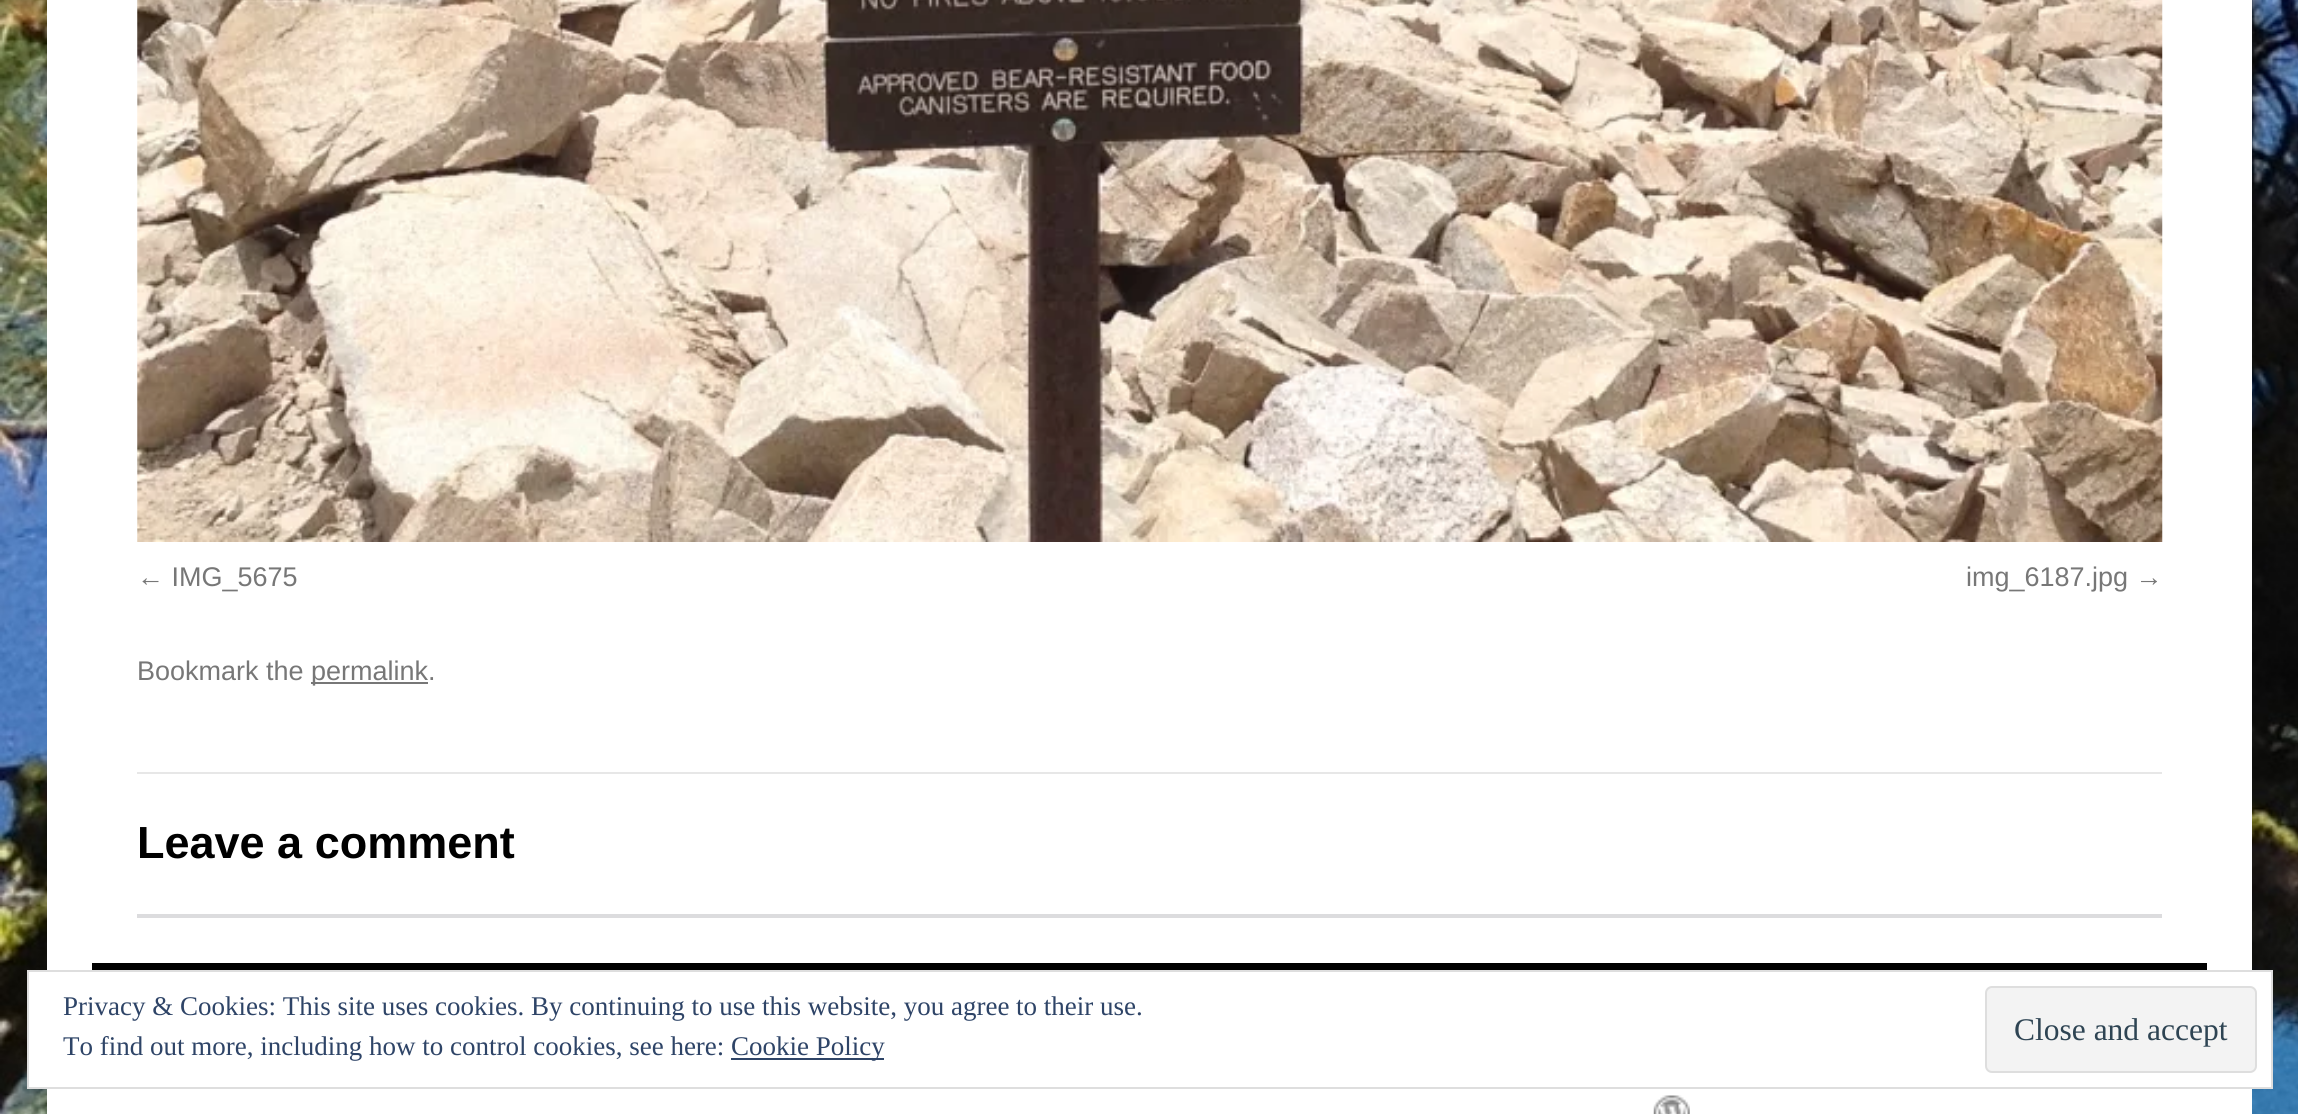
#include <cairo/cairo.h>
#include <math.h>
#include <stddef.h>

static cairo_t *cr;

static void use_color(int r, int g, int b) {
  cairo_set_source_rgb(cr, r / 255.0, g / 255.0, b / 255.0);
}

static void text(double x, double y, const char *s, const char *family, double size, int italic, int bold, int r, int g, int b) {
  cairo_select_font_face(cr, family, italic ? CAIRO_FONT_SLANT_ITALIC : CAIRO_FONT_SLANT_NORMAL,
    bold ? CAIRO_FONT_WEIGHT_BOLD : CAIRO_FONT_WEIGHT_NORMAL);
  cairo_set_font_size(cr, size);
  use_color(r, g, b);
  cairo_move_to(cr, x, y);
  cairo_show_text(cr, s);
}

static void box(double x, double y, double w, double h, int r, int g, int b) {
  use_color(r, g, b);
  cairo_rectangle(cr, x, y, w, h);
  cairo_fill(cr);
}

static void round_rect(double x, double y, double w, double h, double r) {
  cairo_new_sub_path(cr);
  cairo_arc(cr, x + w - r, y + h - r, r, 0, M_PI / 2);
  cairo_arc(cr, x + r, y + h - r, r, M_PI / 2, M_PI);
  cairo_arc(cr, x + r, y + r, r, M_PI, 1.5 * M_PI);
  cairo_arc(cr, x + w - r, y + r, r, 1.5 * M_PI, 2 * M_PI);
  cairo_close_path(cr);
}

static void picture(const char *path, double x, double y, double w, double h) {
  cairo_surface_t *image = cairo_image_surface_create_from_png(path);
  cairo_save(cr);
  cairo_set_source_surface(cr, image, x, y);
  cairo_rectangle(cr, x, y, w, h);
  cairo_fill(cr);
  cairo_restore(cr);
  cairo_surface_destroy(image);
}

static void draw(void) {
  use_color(255, 255, 255);
  cairo_paint(cr);
  picture("img_01.png", 0, 0, 2298, 1114);
  box(47, 0, 2205, 1114, 255, 255, 255);
  picture("img_02.png", 137, 0, 2026, 542);
  box(311, 682, 117, 2, 119, 119, 119);
  box(137, 772, 2025, 2, 231, 231, 231);
  box(137, 914, 2025, 4, 220, 220, 222);
  box(92, 963, 2115, 7, 0, 0, 0);
  picture("img_03.png", 1653, 1095, 37, 19);
  use_color(255, 255, 255);
  cairo_rectangle(cr, 28, 971, 2244, 117);
  cairo_fill_preserve(cr);
  use_color(222, 222, 222);
  cairo_stroke(cr);
  box(731, 1058, 153, 2, 46, 68, 103);
  use_color(243, 243, 243);
  round_rect(1986, 987, 270, 85, 6);
  cairo_fill_preserve(cr);
  use_color(222, 222, 222);
  cairo_stroke(cr);
  text(137, 586, "← IMG_5675", "Liberation Sans", 27, 0, 0, 119, 119, 119);
  text(1966, 586, "img_6187.jpg →", "Liberation Sans", 27, 0, 0, 119, 119, 119);
  text(137, 680, "Bookmark the", "Liberation Sans", 27, 0, 0, 119, 119, 119);
  text(311, 680, "permalink.", "Liberation Sans", 27, 0, 0, 119, 119, 119);
  text(137, 858, "Leave a comment", "Liberation Sans", 45, 0, 1, 0, 0, 0);
  text(63, 1015, "Privacy & Cookies: This site uses cookies. By continuing to use this website, you agree to their use.", "Liberation Serif", 27, 0, 0, 46, 68, 103);
  text(63, 1055, "To find out more, including how to control cookies, see here:", "Liberation Serif", 27, 0, 0, 46, 68, 103);
  text(731, 1055, "Cookie Policy", "Liberation Serif", 27, 0, 0, 46, 68, 103);
  text(2014, 1040, "Close and accept", "Liberation Serif", 31.5, 0, 0, 46, 68, 83);
}

int main(void) {
  cairo_surface_t *surface = cairo_image_surface_create(CAIRO_FORMAT_RGB24, 2298, 1114);
  cr = cairo_create(surface);
  cairo_font_options_t *options = cairo_font_options_create();
  cairo_font_options_set_hint_metrics(options, CAIRO_HINT_METRICS_OFF);
  cairo_font_options_set_hint_style(options, CAIRO_HINT_STYLE_NONE);
  cairo_set_font_options(cr, options);
  cairo_set_miter_limit(cr, 4);
  draw();
  cairo_surface_write_to_png(surface, "out.png");
  cairo_font_options_destroy(options);
  cairo_destroy(cr);
  cairo_surface_destroy(surface);
  return 0;
}
